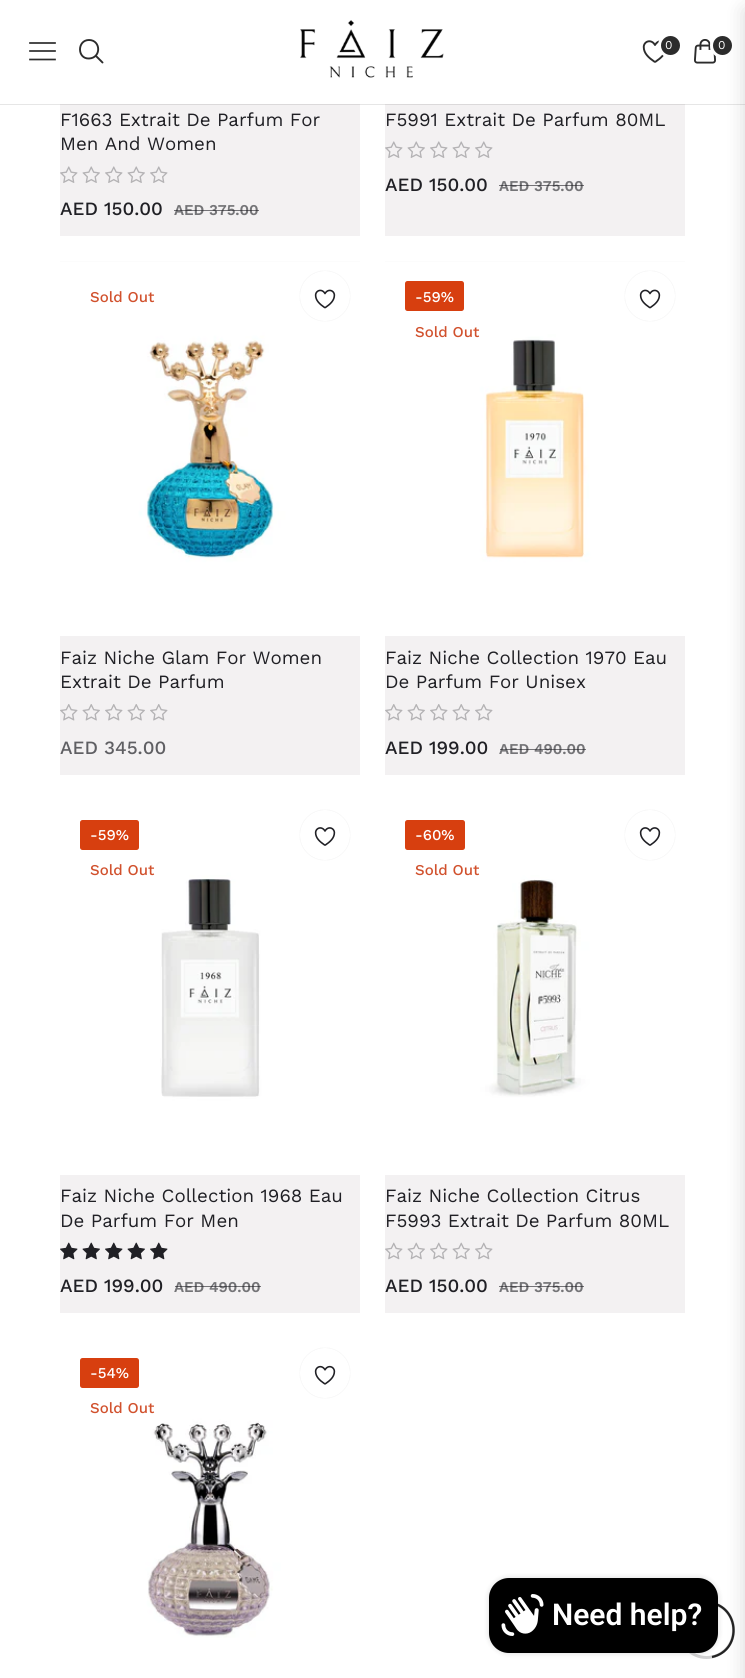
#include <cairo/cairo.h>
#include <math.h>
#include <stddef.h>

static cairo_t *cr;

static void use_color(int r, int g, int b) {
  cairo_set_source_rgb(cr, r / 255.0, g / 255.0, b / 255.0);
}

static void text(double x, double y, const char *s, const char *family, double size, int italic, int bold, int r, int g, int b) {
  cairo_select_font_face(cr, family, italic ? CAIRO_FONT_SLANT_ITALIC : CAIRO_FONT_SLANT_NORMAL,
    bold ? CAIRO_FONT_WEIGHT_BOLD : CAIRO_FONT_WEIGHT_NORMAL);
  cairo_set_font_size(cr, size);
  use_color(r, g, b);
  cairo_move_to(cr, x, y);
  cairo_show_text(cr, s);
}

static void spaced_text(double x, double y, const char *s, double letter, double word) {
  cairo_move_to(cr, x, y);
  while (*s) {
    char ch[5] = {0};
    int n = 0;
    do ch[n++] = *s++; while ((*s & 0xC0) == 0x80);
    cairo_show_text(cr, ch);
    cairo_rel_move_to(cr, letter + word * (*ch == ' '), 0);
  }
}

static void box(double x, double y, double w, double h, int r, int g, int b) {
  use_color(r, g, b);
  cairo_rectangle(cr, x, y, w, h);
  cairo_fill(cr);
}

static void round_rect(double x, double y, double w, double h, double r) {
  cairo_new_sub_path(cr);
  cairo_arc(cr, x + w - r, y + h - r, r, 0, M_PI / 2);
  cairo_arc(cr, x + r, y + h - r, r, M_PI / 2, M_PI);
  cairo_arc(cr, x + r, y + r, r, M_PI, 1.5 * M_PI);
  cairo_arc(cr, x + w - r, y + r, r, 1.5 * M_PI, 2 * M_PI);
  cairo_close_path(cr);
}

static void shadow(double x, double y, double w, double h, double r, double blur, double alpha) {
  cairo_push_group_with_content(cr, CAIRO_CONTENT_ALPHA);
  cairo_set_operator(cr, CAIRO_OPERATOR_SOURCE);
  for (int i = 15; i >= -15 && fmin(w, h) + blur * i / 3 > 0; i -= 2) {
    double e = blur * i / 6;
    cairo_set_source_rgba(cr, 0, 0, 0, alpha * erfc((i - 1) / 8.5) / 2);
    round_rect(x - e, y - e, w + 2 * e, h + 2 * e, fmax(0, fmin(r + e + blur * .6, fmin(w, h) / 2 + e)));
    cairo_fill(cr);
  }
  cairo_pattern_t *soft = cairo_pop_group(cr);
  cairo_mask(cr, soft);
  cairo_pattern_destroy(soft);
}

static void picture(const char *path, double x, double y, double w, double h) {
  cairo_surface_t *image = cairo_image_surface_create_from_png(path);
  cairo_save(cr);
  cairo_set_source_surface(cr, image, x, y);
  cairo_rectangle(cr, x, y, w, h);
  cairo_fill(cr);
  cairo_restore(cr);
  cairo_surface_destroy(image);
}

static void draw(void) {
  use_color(255, 255, 255);
  cairo_paint(cr);
  box(60, 104, 300, 132, 243, 241, 242);
  box(385, 104, 300, 132, 243, 241, 242);
  cairo_rectangle(cr, -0.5, -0.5, 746, 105);
  cairo_set_source_rgba(cr, 0, 0, 0, 0.1);
  cairo_set_line_width(cr, 1);
  cairo_stroke(cr);
  cairo_new_path(cr);
  cairo_move_to(cr, 30, 59.5);
  cairo_line_to(cr, 55, 59.5);
  cairo_move_to(cr, 30, 51);
  cairo_line_to(cr, 55, 51);
  cairo_move_to(cr, 30, 43);
  cairo_line_to(cr, 55, 43);
  use_color(44, 44, 44);
  cairo_set_line_width(cr, 1.7);
  cairo_set_line_cap(cr, CAIRO_LINE_CAP_SQUARE);
  cairo_stroke(cr);
  cairo_new_path(cr);
  cairo_move_to(cr, 89, 40);
  cairo_curve_to(cr, 77, 40, 77, 59, 89, 58.5);
  cairo_curve_to(cr, 101.5, 58, 101, 40, 89, 40);
  cairo_close_path(cr);
  cairo_set_line_width(cr, 1.9);
  cairo_set_line_cap(cr, CAIRO_LINE_CAP_BUTT);
  cairo_stroke(cr);
  cairo_new_path(cr);
  cairo_move_to(cr, 96, 56);
  cairo_line_to(cr, 102.5, 62.5);
  cairo_set_line_cap(cr, CAIRO_LINE_CAP_ROUND);
  cairo_stroke(cr);
  picture("img_01.png", 300, 20, 144, 58);
  picture("img_02.png", 642, 40, 22, 23);
  cairo_arc(cr, 670.5, 45.5, 11, 0, 2 * M_PI);
  cairo_fill_preserve(cr);
  use_color(255, 255, 255);
  cairo_set_line_width(cr, 3);
  cairo_set_line_cap(cr, CAIRO_LINE_CAP_BUTT);
  cairo_stroke(cr);
  picture("img_03.png", 694, 39, 22, 25);
  use_color(44, 44, 44);
  cairo_arc(cr, 722.5, 45.5, 11, 0, 2 * M_PI);
  cairo_fill_preserve(cr);
  use_color(255, 255, 255);
  cairo_stroke(cr);
  round_rect(679.5, 1602.5, 54, 55, 27);
  use_color(210, 210, 211);
  cairo_stroke(cr);
  cairo_new_path(cr);
  cairo_move_to(cr, 706, 1602.5);
  cairo_curve_to(cr, 739, 1602.5, 744, 1650, 712, 1657);
  use_color(34, 34, 34);
  cairo_set_line_width(cr, 2.3);
  cairo_stroke(cr);
  use_color(0, 0, 0);
  shadow(745, 10, 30, 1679, 0, 10, 0.15);
  picture("img_04.png", 60, 166, 18, 17);
  picture("img_05.png", 82, 166, 18, 17);
  picture("img_04.png", 105, 166, 18, 17);
  picture("img_05.png", 127, 166, 18, 17);
  picture("img_04.png", 150, 166, 18, 17);
  picture("img_04.png", 385, 141, 18, 17);
  picture("img_05.png", 407, 141, 18, 17);
  picture("img_04.png", 430, 141, 18, 17);
  picture("img_05.png", 452, 141, 18, 17);
  picture("img_04.png", 475, 141, 18, 17);
  box(60, 261, 300, 514, 243, 241, 242);
  picture("img_06.png", 60, 261, 300, 375);
  use_color(32, 32, 37);
  shadow(300, 271, 50, 50, 25, 0.5, 0.1);
  use_color(255, 255, 255);
  cairo_arc(cr, 325, 296, 25, 0, 2 * M_PI);
  cairo_fill(cr);
  picture("img_07.png", 314, 289, 22, 20);
  picture("img_08.png", 60, 704, 18, 17);
  picture("img_09.png", 82, 704, 18, 17);
  picture("img_08.png", 105, 704, 18, 17);
  picture("img_09.png", 127, 704, 18, 17);
  picture("img_08.png", 150, 704, 18, 17);
  box(385, 261, 300, 514, 243, 241, 242);
  picture("img_10.png", 385, 261, 300, 375);
  use_color(215, 63, 15);
  round_rect(405, 281, 59, 30, 2.5);
  cairo_fill(cr);
  use_color(32, 32, 37);
  shadow(625, 271, 50, 50, 25, 0.5, 0.1);
  use_color(255, 255, 255);
  cairo_arc(cr, 650, 296, 25, 0, 2 * M_PI);
  cairo_fill(cr);
  picture("img_07.png", 639, 289, 22, 20);
  picture("img_08.png", 385, 704, 18, 17);
  picture("img_09.png", 407, 704, 18, 17);
  picture("img_08.png", 430, 704, 18, 17);
  picture("img_09.png", 452, 704, 18, 17);
  picture("img_08.png", 475, 704, 18, 17);
  box(60, 1175, 300, 138, 243, 241, 242);
  picture("img_11.png", 60, 800, 300, 375);
  use_color(215, 63, 15);
  round_rect(80, 820, 59, 30, 2.5);
  cairo_fill(cr);
  use_color(32, 32, 37);
  shadow(300, 810, 50, 50, 25, 0.5, 0.1);
  use_color(255, 255, 255);
  cairo_arc(cr, 325, 835, 25, 0, 2 * M_PI);
  cairo_fill(cr);
  picture("img_12.png", 314, 827, 22, 19);
  picture("img_13.png", 60, 1242, 18, 18);
  picture("img_14.png", 82, 1242, 18, 18);
  picture("img_13.png", 105, 1242, 18, 18);
  picture("img_14.png", 127, 1242, 18, 18);
  picture("img_13.png", 150, 1242, 18, 18);
  box(385, 1175, 300, 138, 243, 241, 242);
  picture("img_15.png", 385, 800, 300, 375);
  use_color(215, 63, 15);
  round_rect(405, 820, 60, 30, 2.5);
  cairo_fill(cr);
  use_color(32, 32, 37);
  shadow(625, 810, 50, 50, 25, 0.5, 0.1);
  use_color(255, 255, 255);
  cairo_arc(cr, 650, 835, 25, 0, 2 * M_PI);
  cairo_fill(cr);
  picture("img_12.png", 639, 827, 22, 19);
  picture("img_16.png", 385, 1242, 18, 18);
  picture("img_17.png", 407, 1242, 18, 18);
  picture("img_16.png", 430, 1242, 18, 18);
  picture("img_17.png", 452, 1242, 18, 18);
  picture("img_16.png", 475, 1242, 18, 18);
  picture("img_18.png", 60, 1338, 300, 340);
  use_color(215, 63, 15);
  round_rect(80, 1358, 59, 30, 2.5);
  cairo_fill(cr);
  use_color(255, 255, 255);
  round_rect(80, 1393, 85, 30, 2.5);
  cairo_fill(cr);
  use_color(32, 32, 37);
  shadow(300, 1348, 50, 50, 25, 0.5, 0.1);
  use_color(255, 255, 255);
  cairo_arc(cr, 325, 1373, 25, 0, 2 * M_PI);
  cairo_fill(cr);
  picture("img_19.png", 314, 1365, 22, 20);
  use_color(0, 0, 0);
  shadow(489, 1578, 229, 75, 20, 3, 0.15);
  use_color(0, 0, 0);
  round_rect(489, 1578, 229, 75, 20);
  cairo_fill(cr);
  picture("img_20.png", 501, 1594, 43, 42);
  cairo_select_font_face(cr, "Work Sans", CAIRO_FONT_SLANT_NORMAL, CAIRO_FONT_WEIGHT_NORMAL);
  cairo_set_font_size(cr, 12);
  use_color(255, 255, 255);
  spaced_text(665, 49, "0", 2, 0);
  spaced_text(718, 49, "0", 2, 0);
  text(60, 126, "F1663 Extrait De Parfum For", "Work Sans", 18.75, 0, 0, 32, 32, 37);
  text(60, 150, "Men And Women", "Work Sans", 18.75, 0, 0, 32, 32, 37);
  text(60, 215, "AED 150.00", "Work Sans Medium", 18.75, 0, 0, 32, 32, 37);
  text(174, 215, "AED 375.00", "Work Sans SemiBold", 15, 0, 0, 116, 116, 119);
  cairo_set_source_rgba(cr, 0.125, 0.125, 0.145, 0.6);
  cairo_rectangle(cr, 174, 210, 85, 1);
  cairo_fill(cr);
  text(385, 126, "F5991 Extrait De Parfum 80ML", "Work Sans", 18.75, 0, 0, 32, 32, 37);
  text(385, 191, "AED 150.00", "Work Sans Medium", 18.75, 0, 0, 32, 32, 37);
  text(499, 191, "AED 375.00", "Work Sans SemiBold", 15, 0, 0, 116, 116, 119);
  cairo_set_source_rgba(cr, 0.125, 0.125, 0.145, 0.6);
  cairo_rectangle(cr, 499, 185, 85, 1);
  cairo_fill(cr);
  text(90, 302, "Sold Out", "Work Sans Medium", 15, 0, 0, 209, 81, 45);
  text(60, 664, "Faiz Niche Glam For Women", "Work Sans", 18.75, 0, 0, 32, 32, 37);
  text(60, 688, "Extrait De Parfum", "Work Sans", 18.75, 0, 0, 32, 32, 37);
  text(60, 754, "AED 345.00", "Work Sans Medium", 18.75, 0, 0, 95, 95, 99);
  text(415, 302, "-59%", "Work Sans Medium", 15, 0, 0, 255, 255, 255);
  text(415, 337, "Sold Out", "Work Sans Medium", 15, 0, 0, 209, 81, 45);
  text(385, 664, "Faiz Niche Collection 1970 Eau", "Work Sans", 18.75, 0, 0, 32, 32, 37);
  text(385, 688, "De Parfum For Unisex", "Work Sans", 18.75, 0, 0, 32, 32, 37);
  text(385, 754, "AED 199.00", "Work Sans Medium", 18.75, 0, 0, 32, 32, 37);
  text(499, 754, "AED 490.00", "Work Sans SemiBold", 15, 0, 0, 116, 116, 119);
  cairo_set_source_rgba(cr, 0.125, 0.125, 0.145, 0.6);
  cairo_rectangle(cr, 500, 749, 86, 1);
  cairo_fill(cr);
  text(90, 840, "-59%", "Work Sans Medium", 15, 0, 0, 255, 255, 255);
  text(90, 875, "Sold Out", "Work Sans Medium", 15, 0, 0, 209, 81, 45);
  text(60, 1202, "Faiz Niche Collection 1968 Eau", "Work Sans", 18.75, 0, 0, 32, 32, 37);
  text(60, 1227, "De Parfum For Men", "Work Sans", 18.75, 0, 0, 32, 32, 37);
  text(60, 1292, "AED 199.00", "Work Sans Medium", 18.75, 0, 0, 32, 32, 37);
  text(174, 1292, "AED 490.00", "Work Sans SemiBold", 15, 0, 0, 116, 116, 119);
  cairo_set_source_rgba(cr, 0.125, 0.125, 0.145, 0.6);
  cairo_rectangle(cr, 175, 1286, 86, 1);
  cairo_fill(cr);
  text(415, 840, "-60%", "Work Sans Medium", 15, 0, 0, 255, 255, 255);
  text(415, 875, "Sold Out", "Work Sans Medium", 15, 0, 0, 209, 81, 45);
  text(385, 1202, "Faiz Niche Collection Citrus", "Work Sans", 18.75, 0, 0, 32, 32, 37);
  text(385, 1227, "F5993 Extrait De Parfum 80ML", "Work Sans", 18.75, 0, 0, 32, 32, 37);
  text(385, 1292, "AED 150.00", "Work Sans Medium", 18.75, 0, 0, 32, 32, 37);
  text(499, 1292, "AED 375.00", "Work Sans SemiBold", 15, 0, 0, 116, 116, 119);
  cairo_set_source_rgba(cr, 0.125, 0.125, 0.145, 0.6);
  cairo_rectangle(cr, 499, 1286, 85, 1);
  cairo_fill(cr);
  text(90, 1378, "-54%", "Work Sans Medium", 15, 0, 0, 255, 255, 255);
  text(90, 1413, "Sold Out", "Work Sans Medium", 15, 0, 0, 209, 81, 45);
  text(552, 1625, "Need help?", "Roboto SemiBold", 30, 0, 0, 255, 255, 255);
}

int main(void) {
  cairo_surface_t *surface = cairo_image_surface_create(CAIRO_FORMAT_RGB24, 745, 1678);
  cr = cairo_create(surface);
  cairo_font_options_t *options = cairo_font_options_create();
  cairo_font_options_set_hint_metrics(options, CAIRO_HINT_METRICS_OFF);
  cairo_font_options_set_hint_style(options, CAIRO_HINT_STYLE_NONE);
  cairo_set_font_options(cr, options);
  cairo_set_miter_limit(cr, 4);
  draw();
  cairo_surface_write_to_png(surface, "out.png");
  cairo_font_options_destroy(options);
  cairo_destroy(cr);
  cairo_surface_destroy(surface);
  return 0;
}
